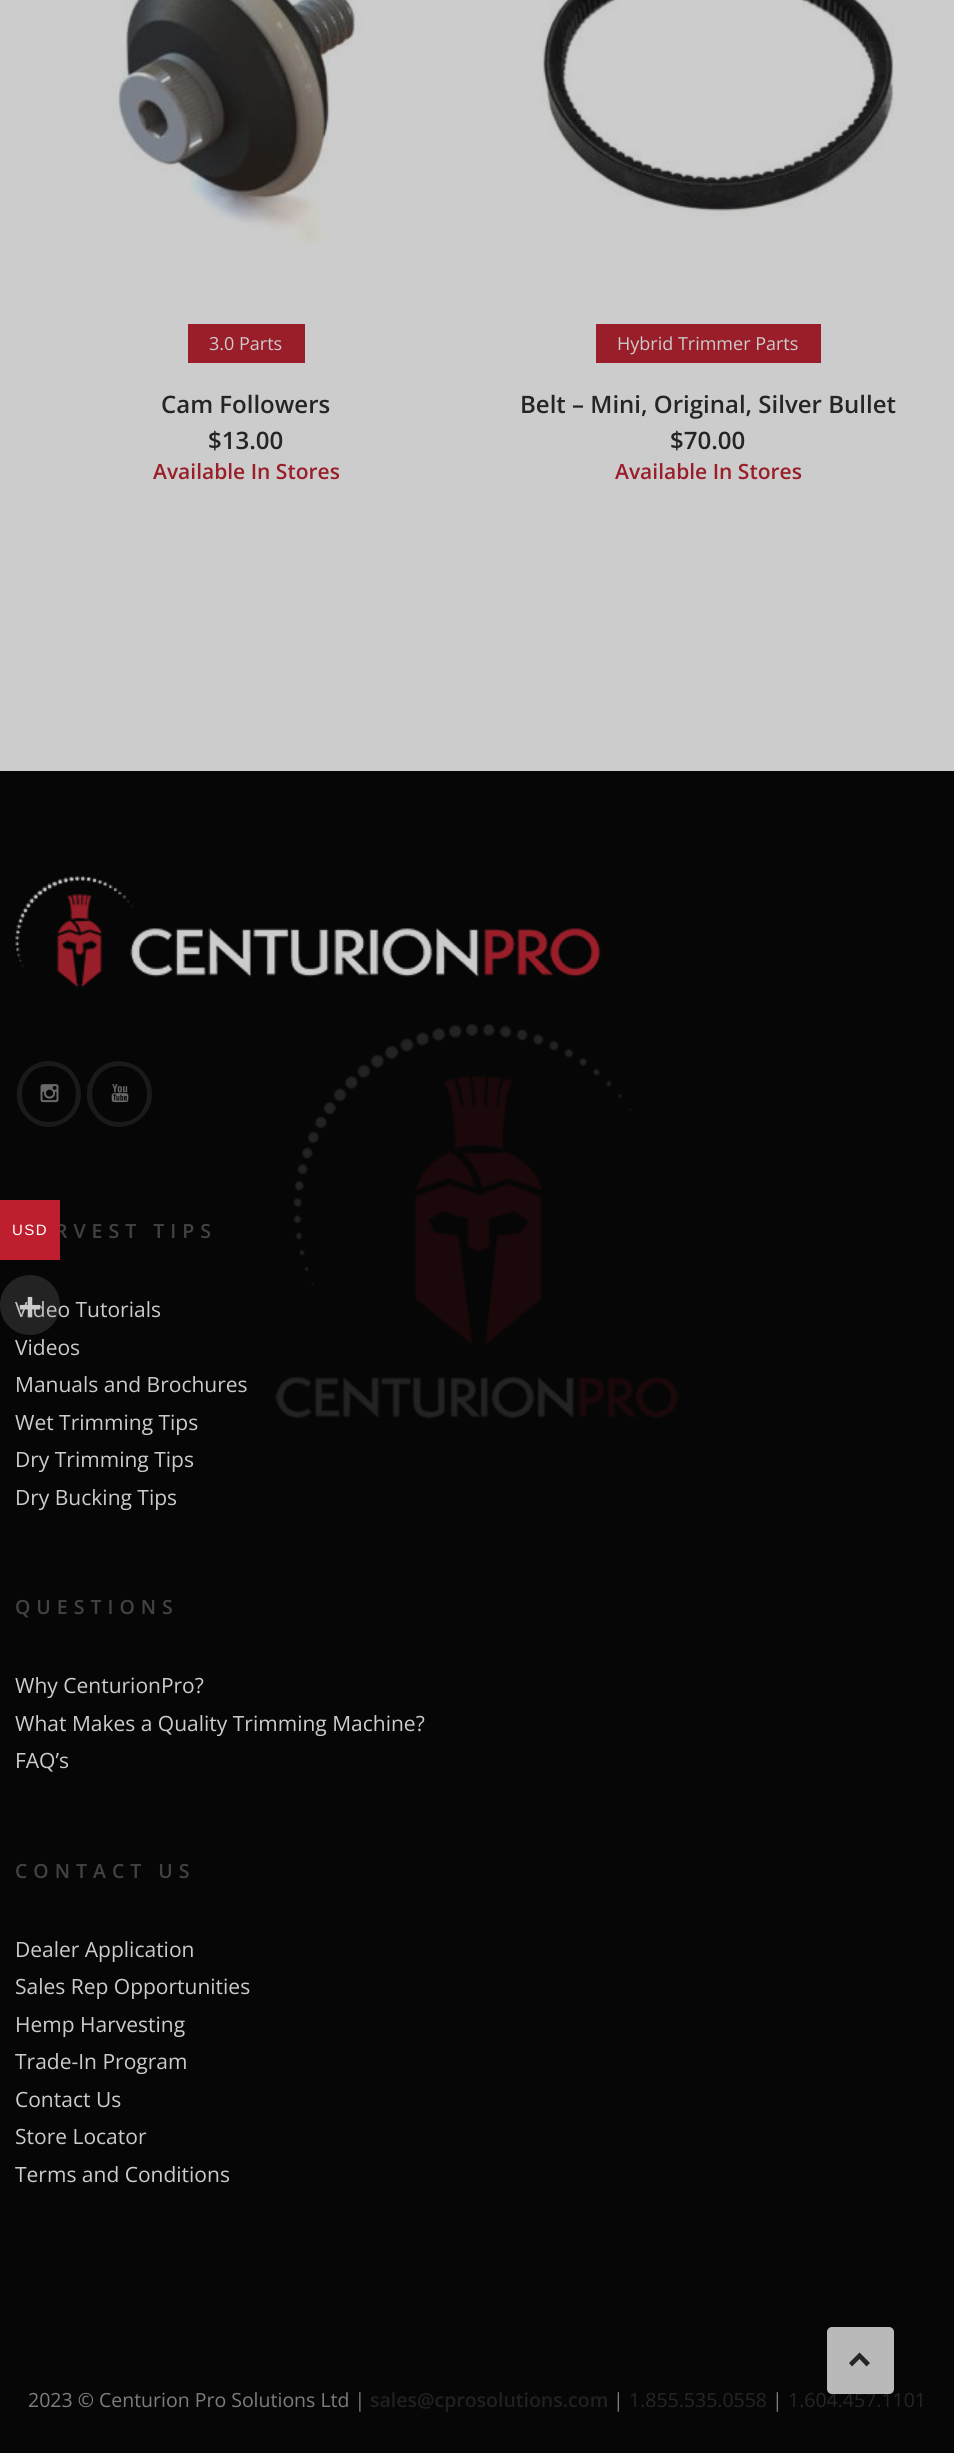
#include <cairo/cairo.h>
#include <math.h>
#include <stddef.h>

static cairo_t *cr;

static void use_color(int r, int g, int b) {
  cairo_set_source_rgb(cr, r / 255.0, g / 255.0, b / 255.0);
}

static void text(double x, double y, const char *s, const char *family, double size, int italic, int bold, int r, int g, int b) {
  cairo_select_font_face(cr, family, italic ? CAIRO_FONT_SLANT_ITALIC : CAIRO_FONT_SLANT_NORMAL,
    bold ? CAIRO_FONT_WEIGHT_BOLD : CAIRO_FONT_WEIGHT_NORMAL);
  cairo_set_font_size(cr, size);
  use_color(r, g, b);
  cairo_move_to(cr, x, y);
  cairo_show_text(cr, s);
}

static void spaced_text(double x, double y, const char *s, double letter, double word) {
  cairo_move_to(cr, x, y);
  while (*s) {
    char ch[5] = {0};
    int n = 0;
    do ch[n++] = *s++; while ((*s & 0xC0) == 0x80);
    cairo_show_text(cr, ch);
    cairo_rel_move_to(cr, letter + word * (*ch == ' '), 0);
  }
}

static void box(double x, double y, double w, double h, int r, int g, int b) {
  use_color(r, g, b);
  cairo_rectangle(cr, x, y, w, h);
  cairo_fill(cr);
}

static void round_rect(double x, double y, double w, double h, double r) {
  cairo_new_sub_path(cr);
  cairo_arc(cr, x + w - r, y + h - r, r, 0, M_PI / 2);
  cairo_arc(cr, x + r, y + h - r, r, M_PI / 2, M_PI);
  cairo_arc(cr, x + r, y + r, r, M_PI, 1.5 * M_PI);
  cairo_arc(cr, x + w - r, y + r, r, 1.5 * M_PI, 2 * M_PI);
  cairo_close_path(cr);
}

static void picture(const char *path, double x, double y, double w, double h) {
  cairo_surface_t *image = cairo_image_surface_create_from_png(path);
  cairo_save(cr);
  cairo_set_source_surface(cr, image, x, y);
  cairo_rectangle(cr, x, y, w, h);
  cairo_fill(cr);
  cairo_restore(cr);
  cairo_surface_destroy(image);
}

static void draw(void) {
  use_color(204, 204, 204);
  cairo_paint(cr);
  picture("img_01.png", 111, 0, 253, 246);
  box(188, 324, 117, 39, 153, 30, 41);
  picture("img_02.png", 540, 0, 355, 216);
  box(596, 324, 225, 39, 153, 30, 41);
  box(0, 771, 954, 1682, 6, 6, 6);
  picture("img_03.png", 15, 876, 586, 112);
  use_color(26, 26, 26);
  cairo_set_fill_rule(cr, CAIRO_FILL_RULE_EVEN_ODD);
  cairo_new_path(cr);
  cairo_move_to(cr, 49, 1061);
  cairo_curve_to(cr, 80, 1061, 93, 1103, 67, 1121);
  cairo_curve_to(cr, 61, 1125, 55, 1127, 49, 1127);
  cairo_curve_to(cr, 42, 1127, 36, 1125, 31, 1121);
  cairo_curve_to(cr, 5, 1104, 17, 1061, 49, 1061);
  cairo_close_path(cr);
  cairo_move_to(cr, 49, 1066);
  cairo_curve_to(cr, 13, 1066, 13, 1122, 49, 1122);
  cairo_curve_to(cr, 85, 1122, 85, 1066, 49, 1066);
  cairo_close_path(cr);
  cairo_fill(cr);
  picture("img_04.png", 40, 1084, 19, 19);
  cairo_new_path(cr);
  cairo_move_to(cr, 152, 1094);
  cairo_curve_to(cr, 152, 1059, 103, 1048, 90, 1081);
  cairo_curve_to(cr, 87, 1086, 87, 1088, 87, 1094);
  cairo_curve_to(cr, 86, 1100, 89, 1107, 93, 1113);
  cairo_curve_to(cr, 110, 1139, 152, 1126, 152, 1094);
  cairo_close_path(cr);
  cairo_move_to(cr, 120, 1066);
  cairo_curve_to(cr, 83, 1066, 83, 1122, 120, 1122);
  cairo_curve_to(cr, 156, 1122, 156, 1066, 120, 1066);
  cairo_close_path(cr);
  cairo_fill(cr);
  picture("img_05.png", 111, 1084, 18, 19);
  picture("img_06.png", 275, 1023, 404, 396);
  text(209, 350, "3.0 Parts", "Open Sans", 18, 0, 0, 204, 204, 204);
  text(161, 413, "Cam Followers", "Open Sans SemiBold", 24, 0, 0, 37, 36, 39);
  text(208, 449, "$13.00", "Open Sans SemiBold", 24, 0, 0, 37, 36, 39);
  text(153, 479, "Available In Stores", "Open Sans SemiBold", 21, 0, 0, 153, 30, 41);
  text(617, 350, "Hybrid Trimmer Parts", "Open Sans", 18, 0, 0, 204, 204, 204);
  text(520, 413, "Belt – Mini, Original, Silver Bullet", "Open Sans SemiBold", 24, 0, 0, 37, 36, 39);
  text(670, 449, "$70.00", "Open Sans SemiBold", 24, 0, 0, 37, 36, 39);
  text(615, 479, "Available In Stores", "Open Sans SemiBold", 21, 0, 0, 153, 30, 41);
  cairo_set_font_size(cr, 19.5);
  use_color(66, 66, 66);
  spaced_text(55, 1238, "RVEST TIPS", 6, 0);
  text(15, 1317, "Video Tutorials", "Open Sans", 21, 0, 0, 204, 204, 204);
  text(15, 1355, "Videos", "Open Sans", 21, 0, 0, 204, 204, 204);
  text(15, 1392, "Manuals and Brochures", "Open Sans", 21, 0, 0, 204, 204, 204);
  text(15, 1430, "Wet Trimming Tips", "Open Sans", 21, 0, 0, 204, 204, 204);
  text(15, 1467, "Dry Trimming Tips", "Open Sans", 21, 0, 0, 204, 204, 204);
  text(15, 1505, "Dry Bucking Tips", "Open Sans", 21, 0, 0, 204, 204, 204);
  cairo_select_font_face(cr, "Open Sans SemiBold", CAIRO_FONT_SLANT_NORMAL, CAIRO_FONT_WEIGHT_NORMAL);
  cairo_set_font_size(cr, 19.5);
  use_color(66, 66, 66);
  spaced_text(15, 1614, "QUESTIONS", 6, 0);
  text(15, 1693, "Why CenturionPro?", "Open Sans", 21, 0, 0, 204, 204, 204);
  text(15, 1731, "What Makes a Quality Trimming Machine?", "Open Sans", 21, 0, 0, 204, 204, 204);
  text(15, 1768, "FAQ’s", "Open Sans", 21, 0, 0, 204, 204, 204);
  cairo_select_font_face(cr, "Open Sans SemiBold", CAIRO_FONT_SLANT_NORMAL, CAIRO_FONT_WEIGHT_NORMAL);
  cairo_set_font_size(cr, 19.5);
  use_color(66, 66, 66);
  spaced_text(15, 1878, "CONTACT US", 6, 0);
  text(15, 1957, "Dealer Application", "Open Sans", 21, 0, 0, 204, 204, 204);
  text(15, 1994, "Sales Rep Opportunities", "Open Sans", 21, 0, 0, 204, 204, 204);
  text(15, 2032, "Hemp Harvesting", "Open Sans", 21, 0, 0, 204, 204, 204);
  text(15, 2069, "Trade-In Program", "Open Sans", 21, 0, 0, 204, 204, 204);
  text(15, 2107, "Contact Us", "Open Sans", 21, 0, 0, 204, 204, 204);
  text(15, 2144, "Store Locator", "Open Sans", 21, 0, 0, 204, 204, 204);
  text(15, 2182, "Terms and Conditions", "Open Sans", 21, 0, 0, 204, 204, 204);
  text(28, 2407, "2023 © Centurion Pro Solutions Ltd |", "Open Sans", 19.5, 0, 0, 125, 125, 125);
  text(370, 2407, "sales@cprosolutions.com", "Open Sans SemiBold", 19.5, 0, 0, 33, 32, 32);
  text(613, 2407, "|", "Open Sans", 19.5, 0, 0, 125, 125, 125);
  text(629, 2407, "1.855.535.0558", "Open Sans", 19.5, 0, 0, 37, 36, 39);
  text(772, 2407, "|", "Open Sans", 19.5, 0, 0, 125, 125, 125);
  text(788, 2407, "1.604.457.1101", "Open Sans", 19.5, 0, 0, 37, 36, 39);
  use_color(185, 185, 185);
  round_rect(827, 2327, 67, 67, 5);
  cairo_fill(cr);
  use_color(37, 36, 39);
  cairo_set_fill_rule(cr, CAIRO_FILL_RULE_WINDING);
  cairo_new_path(cr);
  cairo_move_to(cr, 849, 2363);
  cairo_line_to(cr, 859.5, 2352.5);
  cairo_line_to(cr, 870, 2363);
  cairo_line_to(cr, 866.5, 2366.5);
  cairo_line_to(cr, 859.5, 2359);
  cairo_line_to(cr, 852, 2366.5);
  cairo_close_path(cr);
  cairo_fill(cr);
  box(0, 1200, 60, 60, 190, 30, 45);
  cairo_select_font_face(cr, "Liberation Sans", CAIRO_FONT_SLANT_NORMAL, CAIRO_FONT_WEIGHT_NORMAL);
  cairo_set_font_size(cr, 15);
  use_color(255, 255, 255);
  spaced_text(12, 1235, "USD", 1.5, 0);
  cairo_set_source_rgba(cr, 0.6, 0.6, 0.6, 0.2);
  cairo_new_path(cr);
  cairo_arc(cr, 30, 1305, 30, 0, 2 * M_PI);
  cairo_fill(cr);
  text(18, 1322, "+", "Open Sans", 42, 0, 1, 204, 204, 204);
}

int main(void) {
  cairo_surface_t *surface = cairo_image_surface_create(CAIRO_FORMAT_RGB24, 954, 2453);
  cr = cairo_create(surface);
  cairo_font_options_t *options = cairo_font_options_create();
  cairo_font_options_set_hint_metrics(options, CAIRO_HINT_METRICS_OFF);
  cairo_font_options_set_hint_style(options, CAIRO_HINT_STYLE_NONE);
  cairo_set_font_options(cr, options);
  cairo_set_miter_limit(cr, 4);
  draw();
  cairo_surface_write_to_png(surface, "out.png");
  cairo_font_options_destroy(options);
  cairo_destroy(cr);
  cairo_surface_destroy(surface);
  return 0;
}
